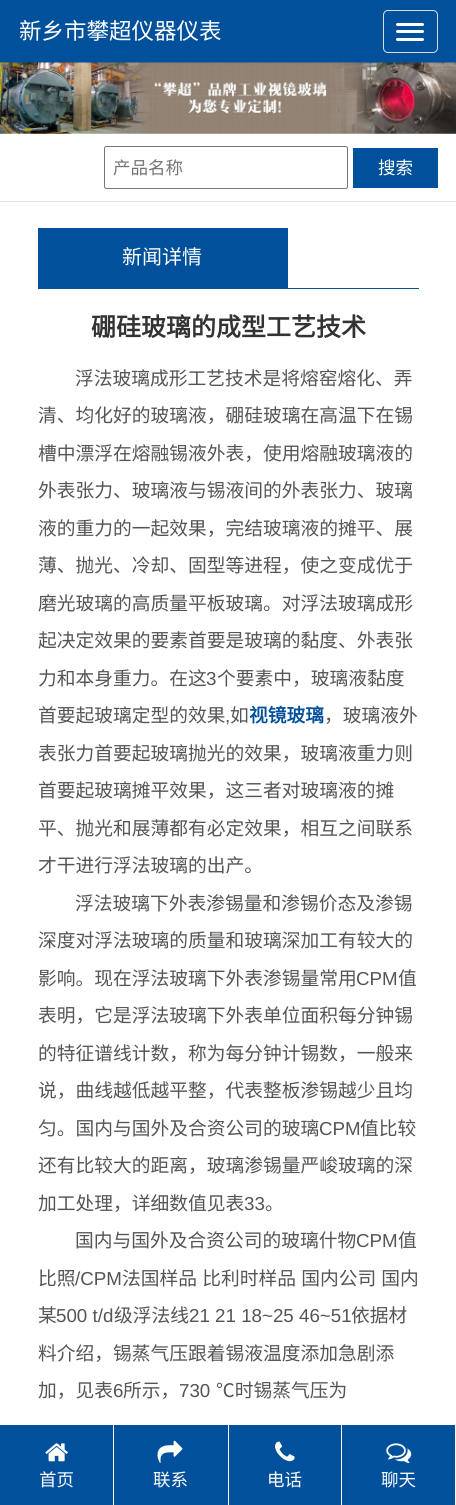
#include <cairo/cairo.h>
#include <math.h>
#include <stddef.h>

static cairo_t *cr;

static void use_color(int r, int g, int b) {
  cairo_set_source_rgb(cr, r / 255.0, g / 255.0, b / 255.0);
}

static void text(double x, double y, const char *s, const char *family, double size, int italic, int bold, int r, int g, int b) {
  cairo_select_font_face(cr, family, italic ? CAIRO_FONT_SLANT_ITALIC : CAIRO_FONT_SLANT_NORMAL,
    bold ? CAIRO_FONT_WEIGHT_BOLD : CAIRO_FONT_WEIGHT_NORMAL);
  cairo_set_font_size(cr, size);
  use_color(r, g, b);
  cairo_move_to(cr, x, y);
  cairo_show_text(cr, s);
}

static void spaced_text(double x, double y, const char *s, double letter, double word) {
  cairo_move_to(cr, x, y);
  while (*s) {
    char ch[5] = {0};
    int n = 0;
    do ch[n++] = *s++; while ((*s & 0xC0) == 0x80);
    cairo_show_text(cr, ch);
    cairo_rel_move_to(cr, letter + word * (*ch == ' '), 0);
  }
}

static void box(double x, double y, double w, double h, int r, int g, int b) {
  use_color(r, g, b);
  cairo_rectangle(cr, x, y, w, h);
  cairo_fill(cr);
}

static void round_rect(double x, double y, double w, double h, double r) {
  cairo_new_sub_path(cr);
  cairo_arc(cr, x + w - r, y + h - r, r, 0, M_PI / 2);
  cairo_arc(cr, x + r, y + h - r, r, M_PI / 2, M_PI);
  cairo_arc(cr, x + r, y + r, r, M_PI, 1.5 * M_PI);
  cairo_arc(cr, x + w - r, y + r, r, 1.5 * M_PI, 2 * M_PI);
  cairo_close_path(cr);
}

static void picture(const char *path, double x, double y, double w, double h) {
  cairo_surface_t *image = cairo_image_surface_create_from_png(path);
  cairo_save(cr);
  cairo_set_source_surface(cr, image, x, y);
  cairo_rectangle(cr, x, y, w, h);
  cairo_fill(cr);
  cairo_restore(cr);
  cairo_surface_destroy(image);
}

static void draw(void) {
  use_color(255, 255, 255);
  cairo_paint(cr);
  box(0, 0, 456, 63, 0, 80, 155);
  round_rect(383.5, 10.5, 54, 42, 4.5);
  use_color(221, 221, 221);
  cairo_set_line_width(cr, 1);
  cairo_stroke(cr);
  use_color(255, 255, 255);
  round_rect(396, 23, 28, 3, 1.5);
  cairo_fill(cr);
  round_rect(396, 30, 28, 3, 1.5);
  cairo_fill(cr);
  round_rect(396, 38, 28, 3, 1.5);
  cairo_fill(cr);
  picture("img_01.png", 0, 62, 456, 72);
  box(0, 201, 456, 1, 226, 226, 226);
  round_rect(104.5, 146.5, 243, 42, 2);
  use_color(118, 118, 118);
  cairo_stroke(cr);
  box(353, 148, 85, 40, 0, 80, 155);
  box(38, 288, 381, 1, 0, 80, 155);
  box(38, 228, 250, 60, 0, 80, 155);
  box(0, 1425, 113, 80, 0, 80, 155);
  picture("img_02.png", 45, 1443, 23, 19);
  box(114, 1425, 114, 80, 0, 80, 155);
  picture("img_03.png", 157, 1440, 26, 23);
  box(229, 1425, 226, 80, 0, 80, 155);
  box(341, 1425, 1, 80, 255, 255, 255);
  picture("img_04.png", 275, 1441, 20, 21);
  picture("img_05.png", 386, 1443, 26, 20);
  text(19, 39, "新乡市攀超仪器仪表", "Noto Sans CJK SC", 22.5, 0, 0, 255, 255, 255);
  text(113, 174, "产品名称", "Noto Sans CJK SC", 17.5, 0, 0, 117, 117, 117);
  text(378, 174, "搜索", "Noto Sans CJK SC", 17.5, 0, 0, 255, 255, 255);
  text(122, 264, "新闻详情", "Noto Sans CJK SC", 20, 0, 0, 255, 255, 255);
  text(91, 336, "硼硅玻璃的成型工艺技术", "Noto Sans CJK SC", 25, 0, 1, 51, 51, 51);
  text(75, 385, "浮法玻璃成形工艺技术是将熔窑熔化、弄", "Noto Sans CJK SC", 18.75, 0, 0, 86, 84, 84);
  text(38, 422, "清、均化好的玻璃液，硼硅玻璃在高温下在锡", "Noto Sans CJK SC", 18.75, 0, 0, 86, 84, 84);
  text(38, 460, "槽中漂浮在熔融锡液外表，使用熔融玻璃液的", "Noto Sans CJK SC", 18.75, 0, 0, 86, 84, 84);
  text(38, 497, "外表张力、玻璃液与锡液间的外表张力、玻璃", "Noto Sans CJK SC", 18.75, 0, 0, 86, 84, 84);
  text(38, 535, "液的重力的一起效果，完结玻璃液的摊平、展", "Noto Sans CJK SC", 18.75, 0, 0, 86, 84, 84);
  text(38, 572, "薄、抛光、冷却、固型等进程，使之变成优于", "Noto Sans CJK SC", 18.75, 0, 0, 86, 84, 84);
  text(38, 610, "磨光玻璃的高质量平板玻璃。对浮法玻璃成形", "Noto Sans CJK SC", 18.75, 0, 0, 86, 84, 84);
  text(38, 647, "起决定效果的要素首要是玻璃的黏度、外表张", "Noto Sans CJK SC", 18.75, 0, 0, 86, 84, 84);
  text(38, 685, "力和本身重力。在这", "Noto Sans CJK SC", 18.75, 0, 0, 86, 84, 84);
  text(206, 685, "3", "Liberation Sans", 18.75, 0, 0, 86, 84, 84);
  text(217, 685, "个要素中，玻璃液黏度", "Noto Sans CJK SC", 18.75, 0, 0, 86, 84, 84);
  text(38, 722, "首要起玻璃定型的效果", "Noto Sans CJK SC", 18.75, 0, 0, 86, 84, 84);
  text(225, 722, ",", "Liberation Sans", 18.75, 0, 0, 86, 84, 84);
  text(230, 722, "如", "Noto Sans CJK SC", 18.75, 0, 0, 86, 84, 84);
  text(249, 722, "视镜玻璃", "Noto Sans CJK SC", 18.75, 0, 1, 0, 80, 155);
  text(324, 722, "，玻璃液外", "Noto Sans CJK SC", 18.75, 0, 0, 86, 84, 84);
  text(38, 760, "表张力首要起玻璃抛光的效果，玻璃液重力则", "Noto Sans CJK SC", 18.75, 0, 0, 86, 84, 84);
  text(38, 797, "首要起玻璃摊平效果，这三者对玻璃液的摊", "Noto Sans CJK SC", 18.75, 0, 0, 86, 84, 84);
  text(38, 835, "平、抛光和展薄都有必定效果，相互之间联系", "Noto Sans CJK SC", 18.75, 0, 0, 86, 84, 84);
  text(38, 872, "才干进行浮法玻璃的出产。", "Noto Sans CJK SC", 18.75, 0, 0, 86, 84, 84);
  text(75, 910, "浮法玻璃下外表渗锡量和渗锡价态及渗锡", "Noto Sans CJK SC", 18.75, 0, 0, 86, 84, 84);
  text(38, 947, "深度对浮法玻璃的质量和玻璃深加工有较大的", "Noto Sans CJK SC", 18.75, 0, 0, 86, 84, 84);
  text(38, 985, "影响。现在浮法玻璃下外表渗锡量常用", "Noto Sans CJK SC", 18.75, 0, 0, 86, 84, 84);
  text(356, 985, "CPM", "Liberation Sans", 18.75, 0, 0, 86, 84, 84);
  text(398, 985, "值", "Noto Sans CJK SC", 18.75, 0, 0, 86, 84, 84);
  text(38, 1022, "表明，它是浮法玻璃下外表单位面积每分钟锡", "Noto Sans CJK SC", 18.75, 0, 0, 86, 84, 84);
  text(38, 1060, "的特征谱线计数，称为每分钟计锡数，一般来", "Noto Sans CJK SC", 18.75, 0, 0, 86, 84, 84);
  text(38, 1097, "说，曲线越低越平整，代表整板渗锡越少且均", "Noto Sans CJK SC", 18.75, 0, 0, 86, 84, 84);
  text(38, 1135, "匀。国内与国外及合资公司的玻璃", "Noto Sans CJK SC", 18.75, 0, 0, 86, 84, 84);
  text(319, 1135, "CPM", "Liberation Sans", 18.75, 0, 0, 86, 84, 84);
  text(360, 1135, "值比较", "Noto Sans CJK SC", 18.75, 0, 0, 86, 84, 84);
  text(38, 1172, "还有比较大的距离，玻璃渗锡量严峻玻璃的深", "Noto Sans CJK SC", 18.75, 0, 0, 86, 84, 84);
  text(38, 1210, "加工处理，详细数值见表", "Noto Sans CJK SC", 18.75, 0, 0, 86, 84, 84);
  text(244, 1210, "33", "Liberation Sans", 18.75, 0, 0, 86, 84, 84);
  text(265, 1210, "。", "Noto Sans CJK SC", 18.75, 0, 0, 86, 84, 84);
  text(75, 1247, "国内与国外及合资公司的玻璃什物", "Noto Sans CJK SC", 18.75, 0, 0, 86, 84, 84);
  text(356, 1247, "CPM", "Liberation Sans", 18.75, 0, 0, 86, 84, 84);
  text(398, 1247, "值", "Noto Sans CJK SC", 18.75, 0, 0, 86, 84, 84);
  text(38, 1285, "比照", "Noto Sans CJK SC", 18.75, 0, 0, 86, 84, 84);
  text(75, 1285, "/CPM", "Liberation Sans", 18.75, 0, 0, 86, 84, 84);
  cairo_select_font_face(cr, "Noto Sans CJK SC", CAIRO_FONT_SLANT_NORMAL, CAIRO_FONT_WEIGHT_NORMAL);
  spaced_text(122, 1285, "法国样品 比利时样品 国内公司 国内", 0, 1);
  text(38, 1322, "某", "Noto Sans CJK SC", 18.75, 0, 0, 86, 84, 84);
  text(56, 1322, "500 t/d", "Liberation Sans", 18.75, 0, 0, 86, 84, 84);
  text(114, 1322, "级浮法线", "Noto Sans CJK SC", 18.75, 0, 0, 86, 84, 84);
  text(189, 1322, "21 21 18~25 46~51", "Liberation Sans", 18.75, 0, 0, 86, 84, 84);
  text(351, 1322, "依据材", "Noto Sans CJK SC", 18.75, 0, 0, 86, 84, 84);
  text(38, 1360, "料介绍，锡蒸气压跟着锡液温度添加急剧添", "Noto Sans CJK SC", 18.75, 0, 0, 86, 84, 84);
  text(38, 1397, "加，见表", "Noto Sans CJK SC", 18.75, 0, 0, 86, 84, 84);
  text(113, 1397, "6", "Liberation Sans", 18.75, 0, 0, 86, 84, 84);
  text(123, 1397, "所示，", "Noto Sans CJK SC", 18.75, 0, 0, 86, 84, 84);
  text(179, 1397, "730", "Liberation Sans", 18.75, 0, 0, 86, 84, 84);
  text(216, 1397, "℃时锡蒸气压为", "Noto Sans CJK SC", 18.75, 0, 0, 86, 84, 84);
  text(39, 1486, "首页", "Noto Sans CJK SC", 17.5, 0, 0, 255, 255, 255);
  text(153, 1486, "联系", "Noto Sans CJK SC", 17.5, 0, 0, 255, 255, 255);
  text(267, 1486, "电话", "Noto Sans CJK SC", 17.5, 0, 0, 255, 255, 255);
  text(381, 1486, "聊天", "Noto Sans CJK SC", 17.5, 0, 0, 255, 255, 255);
}

int main(void) {
  cairo_surface_t *surface = cairo_image_surface_create(CAIRO_FORMAT_RGB24, 456, 1505);
  cr = cairo_create(surface);
  cairo_font_options_t *options = cairo_font_options_create();
  cairo_font_options_set_hint_metrics(options, CAIRO_HINT_METRICS_OFF);
  cairo_font_options_set_hint_style(options, CAIRO_HINT_STYLE_NONE);
  cairo_set_font_options(cr, options);
  cairo_set_miter_limit(cr, 4);
  draw();
  cairo_surface_write_to_png(surface, "out.png");
  cairo_font_options_destroy(options);
  cairo_destroy(cr);
  cairo_surface_destroy(surface);
  return 0;
}
